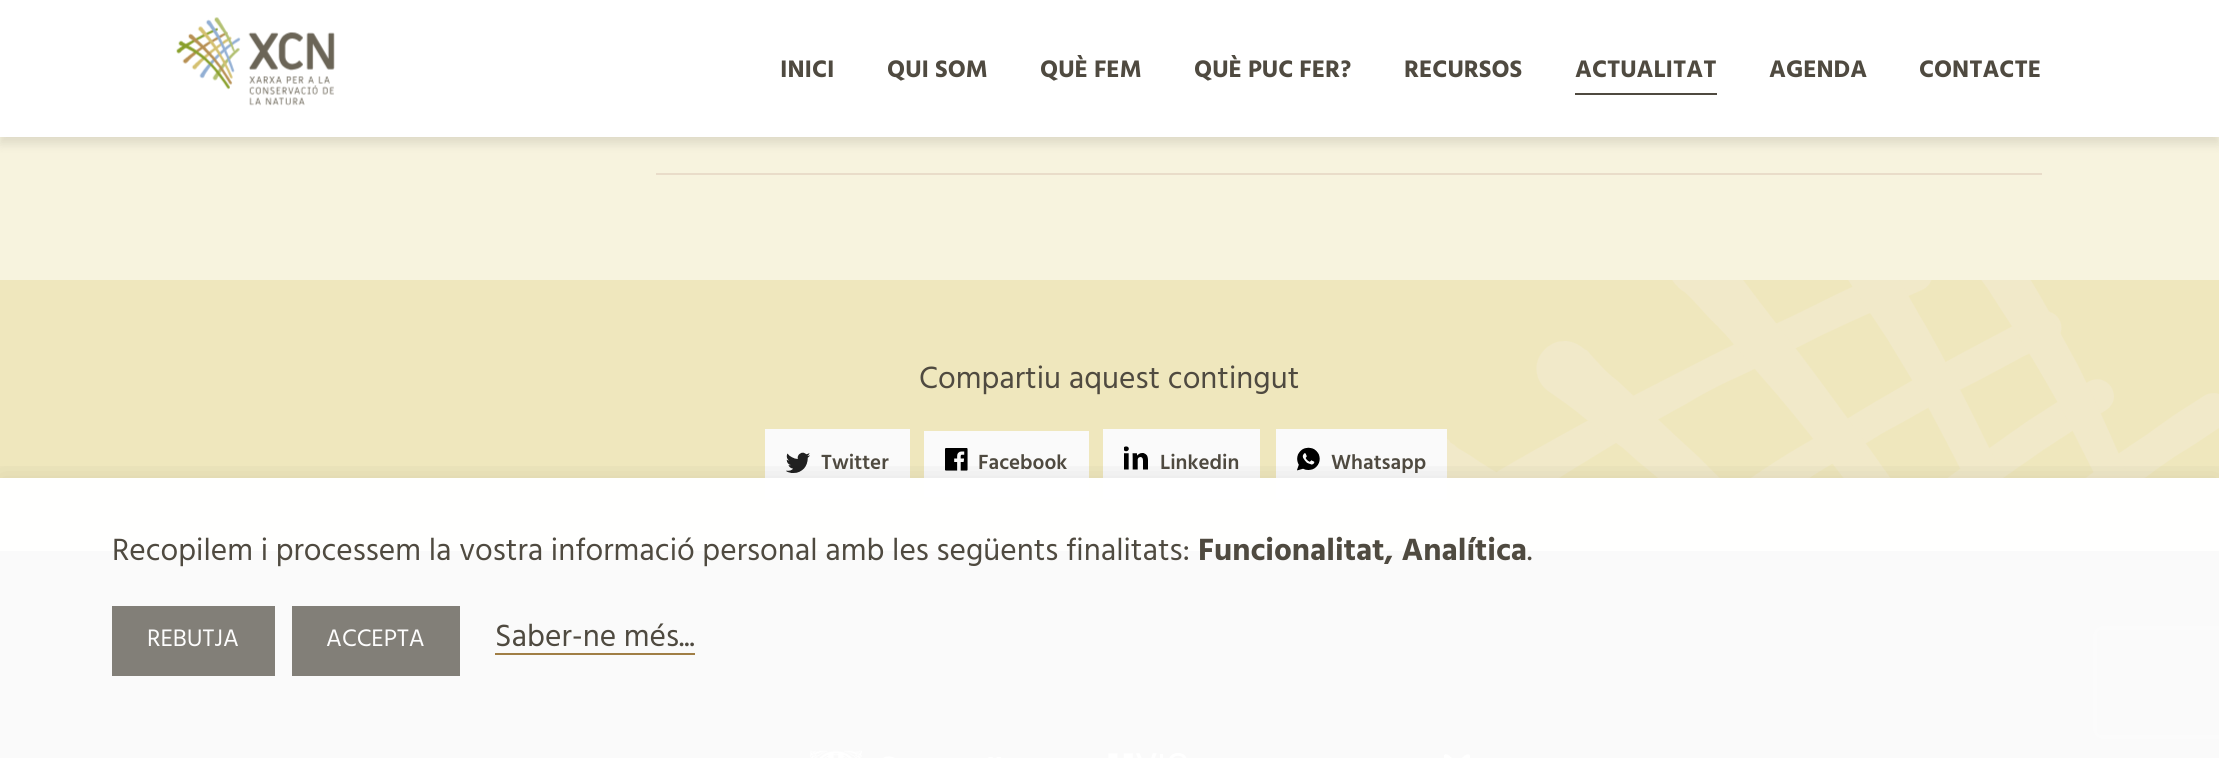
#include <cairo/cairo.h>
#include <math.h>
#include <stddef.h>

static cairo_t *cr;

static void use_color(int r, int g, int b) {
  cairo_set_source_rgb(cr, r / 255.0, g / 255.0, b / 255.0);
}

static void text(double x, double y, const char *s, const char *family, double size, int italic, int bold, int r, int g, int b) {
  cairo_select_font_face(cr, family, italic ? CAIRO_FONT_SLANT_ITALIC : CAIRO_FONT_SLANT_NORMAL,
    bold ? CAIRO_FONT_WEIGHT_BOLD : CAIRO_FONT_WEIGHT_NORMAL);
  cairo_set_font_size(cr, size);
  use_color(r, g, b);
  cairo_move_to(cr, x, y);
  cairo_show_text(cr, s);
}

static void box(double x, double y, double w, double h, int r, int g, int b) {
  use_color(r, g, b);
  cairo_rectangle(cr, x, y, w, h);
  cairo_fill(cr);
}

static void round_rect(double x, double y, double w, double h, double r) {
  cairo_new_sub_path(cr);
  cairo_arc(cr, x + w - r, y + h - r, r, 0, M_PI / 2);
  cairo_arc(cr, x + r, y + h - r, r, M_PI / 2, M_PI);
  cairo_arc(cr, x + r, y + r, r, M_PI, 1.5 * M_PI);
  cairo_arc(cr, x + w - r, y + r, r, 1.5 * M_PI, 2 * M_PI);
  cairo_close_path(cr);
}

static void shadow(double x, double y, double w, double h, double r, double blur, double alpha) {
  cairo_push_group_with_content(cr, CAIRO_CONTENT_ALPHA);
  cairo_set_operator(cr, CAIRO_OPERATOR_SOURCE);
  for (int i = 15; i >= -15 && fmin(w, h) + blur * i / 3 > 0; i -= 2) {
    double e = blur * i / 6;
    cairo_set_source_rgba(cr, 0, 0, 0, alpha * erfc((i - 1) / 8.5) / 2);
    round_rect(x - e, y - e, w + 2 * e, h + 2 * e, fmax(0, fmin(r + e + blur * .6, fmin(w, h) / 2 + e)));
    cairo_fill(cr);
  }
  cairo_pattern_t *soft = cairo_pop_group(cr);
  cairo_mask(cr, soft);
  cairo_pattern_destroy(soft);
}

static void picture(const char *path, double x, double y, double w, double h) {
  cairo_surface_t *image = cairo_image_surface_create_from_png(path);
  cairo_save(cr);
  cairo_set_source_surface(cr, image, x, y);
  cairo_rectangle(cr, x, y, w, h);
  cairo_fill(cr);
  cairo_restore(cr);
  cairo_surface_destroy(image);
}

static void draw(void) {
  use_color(247, 243, 222);
  cairo_paint(cr);
  use_color(0, 0, 0);
  shadow(0, 7, 2219, 137, 0, 5, 0.1);
  box(0, 0, 2219, 137, 255, 255, 255);
  picture("img_01.png", 176, 17, 159, 89);
  box(1575, 93, 142, 2, 79, 74, 64);
  box(656, 173, 1386, 2, 233, 220, 201);
  box(0, 280, 2219, 271, 239, 231, 189);
  picture("img_02.png", 1378, 280, 841, 271);
  box(765, 429, 145, 70, 250, 250, 250);
  picture("img_03.png", 786, 452, 24, 21);
  box(924, 431, 165, 66, 250, 250, 250);
  picture("img_04.png", 945, 448, 23, 23);
  box(1103, 429, 157, 70, 250, 250, 250);
  picture("img_05.png", 1124, 446, 24, 24);
  box(1276, 429, 171, 70, 250, 250, 250);
  picture("img_06.png", 1297, 447, 23, 24);
  box(0, 551, 2219, 207, 0, 0, 0);
  picture("img_07.png", 810, 750, 230, 8);
  picture("img_08.png", 1108, 752, 79, 6);
  picture("img_09.png", 1444, 754, 26, 4);
  cairo_save(cr);
  cairo_rectangle(cr, 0, 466, 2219, 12);
  cairo_clip(cr);
  use_color(0, 0, 0);
  shadow(0, 478, 2219, 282, 0, 14, 0.1);
  cairo_restore(cr);
  cairo_save(cr);
  cairo_set_fill_rule(cr, CAIRO_FILL_RULE_EVEN_ODD);
  cairo_new_path(cr);
  cairo_move_to(cr, 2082, 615);
  cairo_line_to(cr, 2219, 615);
  cairo_line_to(cr, 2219, 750);
  cairo_line_to(cr, 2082, 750);
  cairo_close_path(cr);
  cairo_move_to(cr, 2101, 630);
  cairo_line_to(cr, 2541, 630);
  cairo_curve_to(cr, 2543, 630, 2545, 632, 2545, 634);
  cairo_line_to(cr, 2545, 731);
  cairo_curve_to(cr, 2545, 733, 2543, 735, 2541, 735);
  cairo_line_to(cr, 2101, 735);
  cairo_curve_to(cr, 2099, 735, 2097, 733, 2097, 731);
  cairo_line_to(cr, 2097, 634);
  cairo_curve_to(cr, 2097, 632, 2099, 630, 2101, 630);
  cairo_close_path(cr);
  cairo_clip(cr);
  use_color(128, 128, 128);
  shadow(2097, 630, 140, 105, 4, 4.5, 1);
  cairo_restore(cr);
  cairo_set_source_rgba(cr, 1, 1, 1, 0.98);
  cairo_rectangle(cr, 0, 478, 2219, 280);
  cairo_fill(cr);
  box(112, 606, 163, 70, 130, 127, 120);
  box(292, 606, 168, 70, 130, 127, 120);
  box(495, 653, 200, 2, 160, 126, 69);
  text(780, 77, "INICI", "Hind", 24.5, 0, 1, 79, 74, 64);
  text(887, 77, "QUI SOM", "Hind", 24.5, 0, 1, 79, 74, 64);
  text(1040, 77, "QUÈ FEM", "Hind", 24.5, 0, 1, 79, 74, 64);
  text(1194, 77, "QUÈ PUC FER?", "Hind", 24.5, 0, 1, 79, 74, 64);
  text(1404, 77, "RECURSOS", "Hind", 24.5, 0, 1, 79, 74, 64);
  text(1575, 77, "ACTUALITAT", "Hind", 24.5, 0, 1, 79, 74, 64);
  text(1769, 77, "AGENDA", "Hind", 24.5, 0, 1, 79, 74, 64);
  text(1919, 77, "CONTACTE", "Hind", 24.5, 0, 1, 79, 74, 64);
  text(919, 388, "Compartiu aquest contingut", "Hind", 31.5, 0, 0, 79, 74, 64);
  text(821, 469, "Twitter", "Hind SemiBold", 21, 0, 0, 79, 74, 64);
  text(978, 469, "Facebook", "Hind SemiBold", 21, 0, 0, 79, 74, 64);
  text(1160, 469, "Linkedin", "Hind SemiBold", 21, 0, 0, 79, 74, 64);
  text(1331, 469, "Whatsapp", "Hind SemiBold", 21, 0, 0, 79, 74, 64);
  text(112, 560, "Recopilem i processem la vostra informació personal amb les següents finalitats:", "Hind", 31.5, 0, 0, 79, 74, 64);
  text(1198, 560, "Funcionalitat, Analítica", "Hind", 31.5, 0, 1, 79, 74, 64);
  text(1527, 560, ".", "Hind", 31.5, 0, 0, 79, 74, 64);
  text(147, 646, "REBUTJA", "Hind", 24.5, 0, 0, 253, 253, 253);
  text(326, 646, "ACCEPTA", "Hind", 24.5, 0, 0, 253, 253, 253);
  text(495, 646, "Saber-ne més...", "Hind", 31.5, 0, 0, 79, 74, 64);
}

int main(void) {
  cairo_surface_t *surface = cairo_image_surface_create(CAIRO_FORMAT_RGB24, 2219, 758);
  cr = cairo_create(surface);
  cairo_font_options_t *options = cairo_font_options_create();
  cairo_font_options_set_hint_metrics(options, CAIRO_HINT_METRICS_OFF);
  cairo_font_options_set_hint_style(options, CAIRO_HINT_STYLE_NONE);
  cairo_set_font_options(cr, options);
  cairo_set_miter_limit(cr, 4);
  draw();
  cairo_surface_write_to_png(surface, "out.png");
  cairo_font_options_destroy(options);
  cairo_destroy(cr);
  cairo_surface_destroy(surface);
  return 0;
}
